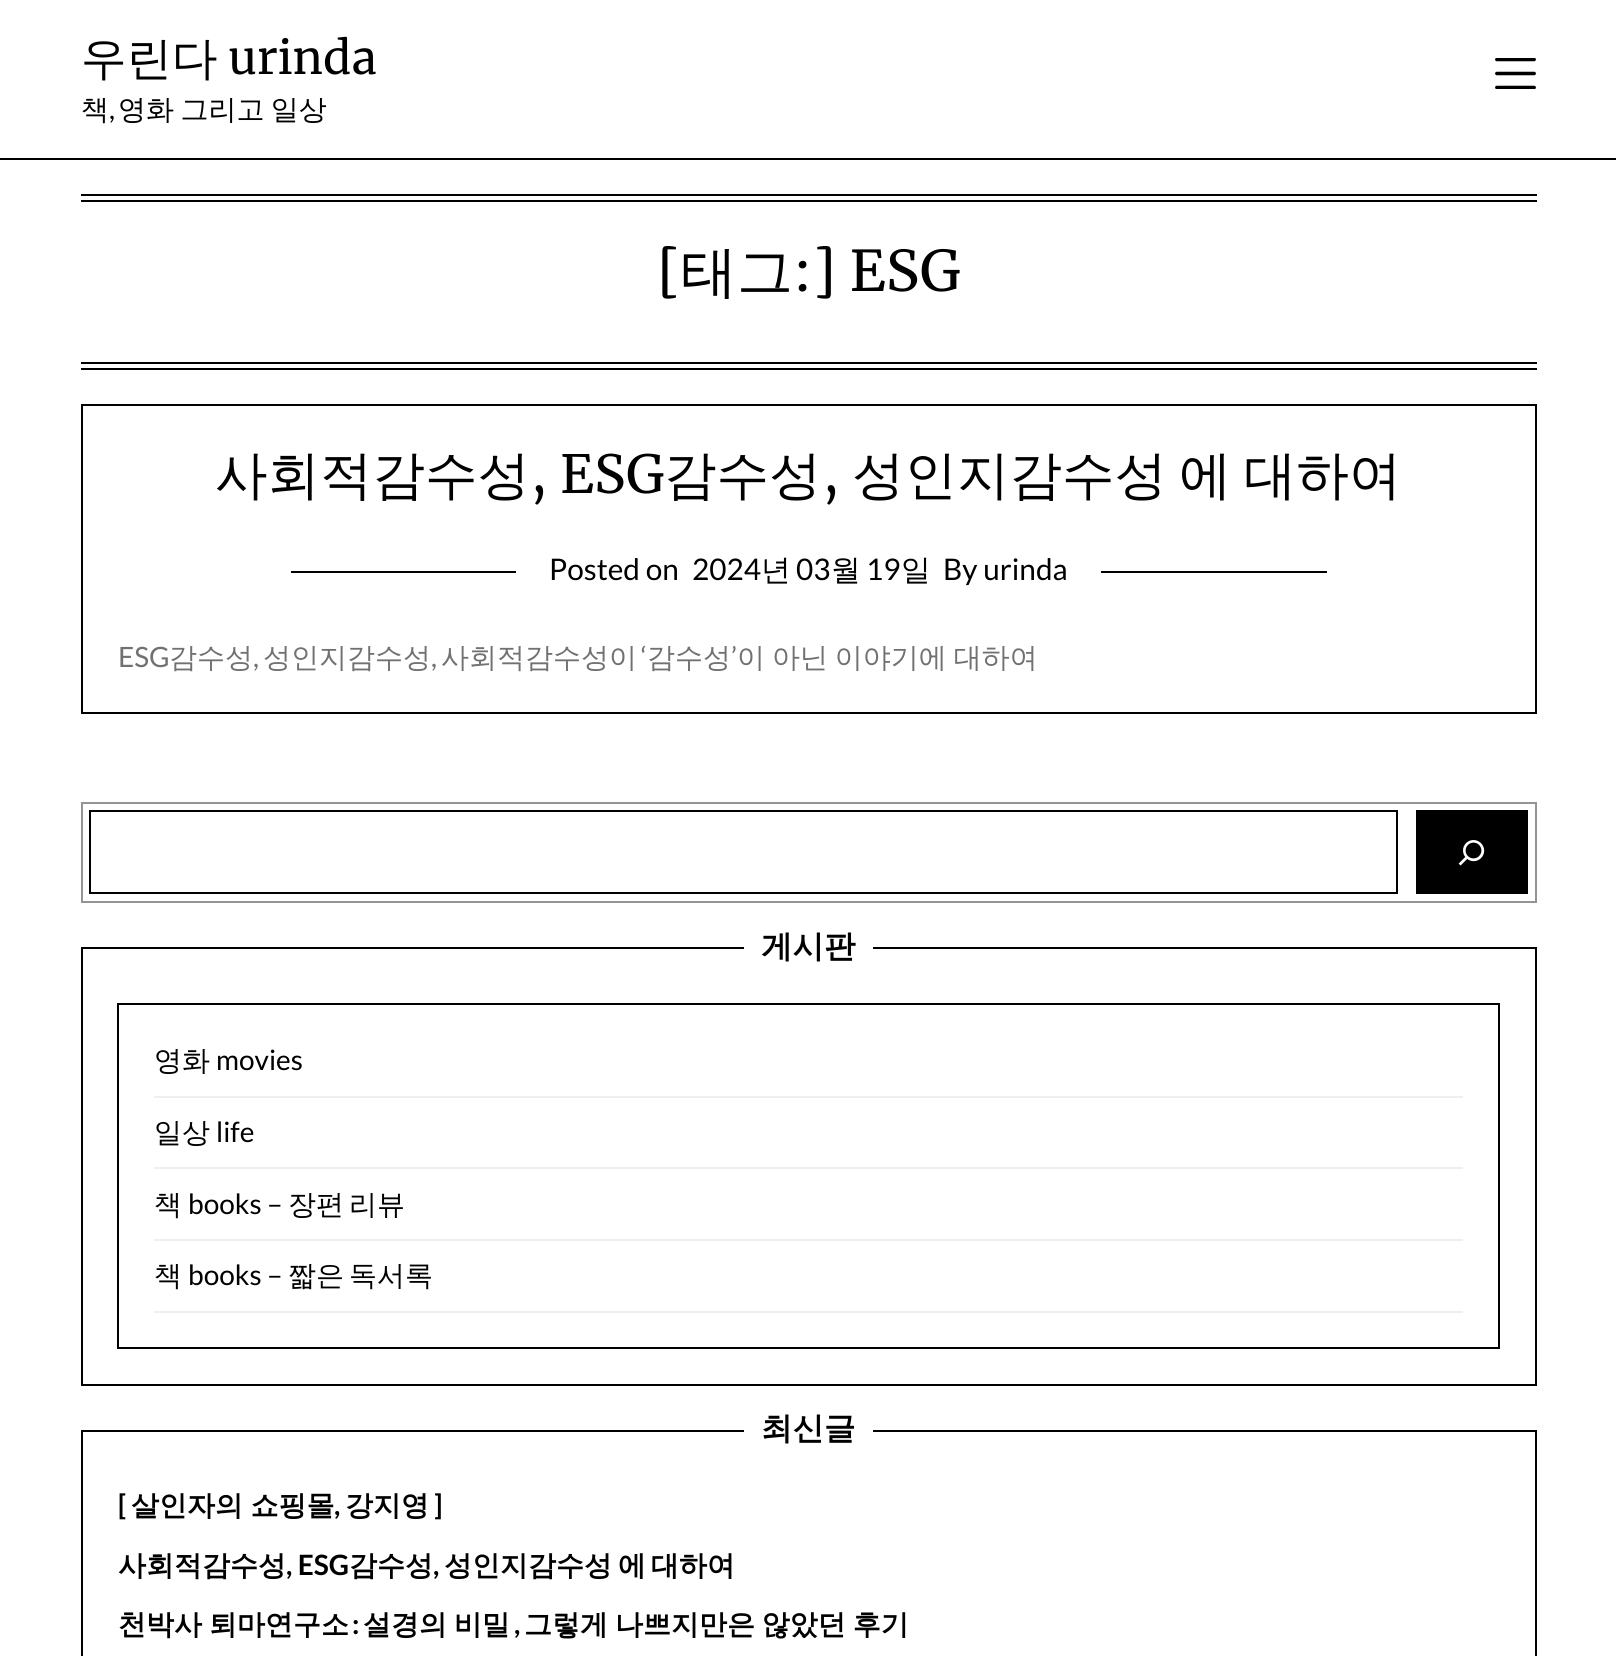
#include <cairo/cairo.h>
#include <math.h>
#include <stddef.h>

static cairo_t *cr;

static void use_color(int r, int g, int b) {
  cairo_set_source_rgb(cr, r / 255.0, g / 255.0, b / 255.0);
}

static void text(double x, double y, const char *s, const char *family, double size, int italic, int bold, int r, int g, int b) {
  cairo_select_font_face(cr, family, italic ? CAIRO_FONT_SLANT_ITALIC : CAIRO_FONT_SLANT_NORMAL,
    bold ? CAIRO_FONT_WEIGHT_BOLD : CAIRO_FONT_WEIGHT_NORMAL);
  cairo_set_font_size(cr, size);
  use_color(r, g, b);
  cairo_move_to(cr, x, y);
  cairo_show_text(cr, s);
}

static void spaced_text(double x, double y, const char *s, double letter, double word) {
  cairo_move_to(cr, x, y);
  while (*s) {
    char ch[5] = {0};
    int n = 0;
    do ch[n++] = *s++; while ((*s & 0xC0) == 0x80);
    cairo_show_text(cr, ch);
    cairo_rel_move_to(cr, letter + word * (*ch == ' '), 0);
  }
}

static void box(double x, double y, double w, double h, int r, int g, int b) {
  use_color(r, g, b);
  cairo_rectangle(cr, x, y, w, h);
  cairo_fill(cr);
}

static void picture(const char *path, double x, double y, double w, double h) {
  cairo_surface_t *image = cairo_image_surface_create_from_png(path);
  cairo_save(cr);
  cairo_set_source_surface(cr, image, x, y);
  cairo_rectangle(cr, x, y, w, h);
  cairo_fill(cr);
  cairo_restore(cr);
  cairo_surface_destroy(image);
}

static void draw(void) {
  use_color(255, 255, 255);
  cairo_paint(cr);
  box(0, 158, 1616, 2, 0, 0, 0);
  picture("img_01.png", 1495, 58, 41, 31);
  box(81, 194, 1456, 2, 0, 0, 0);
  box(81, 200, 1456, 2, 0, 0, 0);
  box(81, 362, 1456, 2, 0, 0, 0);
  box(81, 368, 1456, 2, 0, 0, 0);
  cairo_rectangle(cr, 82, 405, 1454, 308);
  cairo_stroke(cr);
  box(291, 571, 1036, 2, 0, 0, 0);
  box(516, 571, 585, 2, 255, 255, 255);
  cairo_rectangle(cr, 82, 803, 1454, 99);
  use_color(148, 148, 148);
  cairo_stroke(cr);
  cairo_rectangle(cr, 90, 811, 1307, 82);
  use_color(0, 0, 0);
  cairo_stroke(cr);
  box(1416, 810, 112, 84, 0, 0, 0);
  picture("img_02.png", 1458, 840, 27, 26);
  cairo_rectangle(cr, 82, 948, 1454, 437);
  cairo_stroke(cr);
  box(744, 947, 129, 2, 255, 255, 255);
  cairo_rectangle(cr, 118, 1004, 1381, 344);
  use_color(0, 0, 0);
  cairo_stroke(cr);
  box(154, 1096, 1309, 2, 239, 239, 239);
  box(154, 1167, 1309, 2, 239, 239, 239);
  box(154, 1239, 1309, 2, 239, 239, 239);
  box(154, 1311, 1309, 2, 239, 239, 239);
  cairo_rectangle(cr, 82, 1431, 1454, 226);
  use_color(0, 0, 0);
  cairo_stroke(cr);
  box(744, 1430, 129, 2, 255, 255, 255);
  text(81, 74, "우린다", "WenQuanYi Zen Hei Medium", 45.5, 0, 0, 0, 0, 0);
  text(228, 74, "urinda", "Merriweather", 45.5, 0, 0, 0, 0, 0);
  text(81, 119, "책", "WenQuanYi Zen Hei Medium", 28, 0, 0, 0, 0, 0);
  text(109, 119, ",", "Lato", 28, 0, 0, 0, 0, 0);
  cairo_select_font_face(cr, "WenQuanYi Zen Hei Medium", CAIRO_FONT_SLANT_NORMAL, CAIRO_FONT_WEIGHT_NORMAL);
  spaced_text(118, 119, "영화 그리고 일상", 0, -2);
  text(657, 291, "[", "Merriweather", 56, 0, 0, 0, 0, 0);
  text(681, 291, "태그", "WenQuanYi Zen Hei Medium", 56, 0, 0, 0, 0, 0);
  text(793, 291, ":] ESG", "Merriweather", 56, 0, 0, 0, 0, 0);
  text(215, 493, "사회적감수성", "WenQuanYi Zen Hei Medium", 52.5, 0, 0, 0, 0, 0);
  text(530, 493, ", ESG", "Merriweather", 52.5, 0, 0, 0, 0, 0);
  text(664, 493, "감수성", "WenQuanYi Zen Hei Medium", 52.5, 0, 0, 0, 0, 0);
  text(822, 493, ",", "Merriweather", 52.5, 0, 0, 0, 0, 0);
  text(852, 493, "성인지감수성", "WenQuanYi Zen Hei Medium", 52.5, 0, 0, 0, 0, 0);
  text(1179, 493, "에", "WenQuanYi Zen Hei Medium", 52.5, 0, 0, 0, 0, 0);
  text(1244, 493, "대하여", "WenQuanYi Zen Hei Medium", 52.5, 0, 0, 0, 0, 0);
  text(549, 580, "Posted on", "Lato", 29.75, 0, 0, 0, 0, 0);
  text(692, 580, "2024", "Lato", 29.75, 0, 0, 0, 0, 0);
  text(761, 580, "년", "WenQuanYi Zen Hei Medium", 29.75, 0, 0, 0, 0, 0);
  text(796, 580, "03", "Lato", 29.75, 0, 0, 0, 0, 0);
  text(831, 580, "월", "WenQuanYi Zen Hei Medium", 29.75, 0, 0, 0, 0, 0);
  text(866, 580, "19", "Lato", 29.75, 0, 0, 0, 0, 0);
  text(901, 580, "일", "WenQuanYi Zen Hei Medium", 29.75, 0, 0, 0, 0, 0);
  text(943, 580, "By urinda", "Lato", 29.75, 0, 0, 0, 0, 0);
  text(118, 667, "ESG", "Lato", 28, 0, 0, 113, 113, 113);
  text(169, 667, "감수성", "WenQuanYi Zen Hei Medium", 28, 0, 0, 113, 113, 113);
  text(253, 667, ",", "Lato", 28, 0, 0, 113, 113, 113);
  text(263, 667, "성인지감수성", "WenQuanYi Zen Hei Medium", 28, 0, 0, 113, 113, 113);
  text(431, 667, ",", "Lato", 28, 0, 0, 113, 113, 113);
  text(441, 667, "사회적감수성이", "WenQuanYi Zen Hei Medium", 28, 0, 0, 113, 113, 113);
  text(641, 667, "‘", "Lato", 28, 0, 0, 113, 113, 113);
  text(647, 667, "감수성", "WenQuanYi Zen Hei Medium", 28, 0, 0, 113, 113, 113);
  text(731, 667, "’", "Lato", 28, 0, 0, 113, 113, 113);
  cairo_select_font_face(cr, "WenQuanYi Zen Hei Medium", CAIRO_FONT_SLANT_NORMAL, CAIRO_FONT_WEIGHT_NORMAL);
  spaced_text(737, 667, "이 아닌 이야기에 대하여", 0, -1.5);
  text(761, 957, "게시판", "WenQuanYi Zen Hei", 31.5, 0, 1, 0, 0, 0);
  text(154, 1070, "영화", "WenQuanYi Zen Hei Medium", 28, 0, 0, 0, 0, 0);
  text(216, 1070, "movies", "Lato", 28, 0, 0, 0, 0, 0);
  text(154, 1142, "일상", "WenQuanYi Zen Hei Medium", 28, 0, 0, 0, 0, 0);
  text(216, 1142, "life", "Lato", 28, 0, 0, 0, 0, 0);
  text(154, 1214, "책", "WenQuanYi Zen Hei Medium", 28, 0, 0, 0, 0, 0);
  text(188, 1214, "books –", "Lato", 28, 0, 0, 0, 0, 0);
  text(288, 1214, "장편", "WenQuanYi Zen Hei Medium", 28, 0, 0, 0, 0, 0);
  text(349, 1214, "리뷰", "WenQuanYi Zen Hei Medium", 28, 0, 0, 0, 0, 0);
  text(154, 1285, "책", "WenQuanYi Zen Hei Medium", 28, 0, 0, 0, 0, 0);
  text(188, 1285, "books –", "Lato", 28, 0, 0, 0, 0, 0);
  text(288, 1285, "짧은", "WenQuanYi Zen Hei Medium", 28, 0, 0, 0, 0, 0);
  text(349, 1285, "독서록", "WenQuanYi Zen Hei Medium", 28, 0, 0, 0, 0, 0);
  text(761, 1439, "최신글", "WenQuanYi Zen Hei", 31.5, 0, 1, 0, 0, 0);
  text(118, 1515, "[", "Lato", 28, 0, 1, 0, 0, 0);
  cairo_select_font_face(cr, "WenQuanYi Zen Hei", CAIRO_FONT_SLANT_NORMAL, CAIRO_FONT_WEIGHT_BOLD);
  spaced_text(131, 1515, "살인자의 쇼핑몰", 0, -1);
  text(334, 1515, ",", "Lato", 28, 0, 1, 0, 0, 0);
  text(345, 1515, "강지영", "WenQuanYi Zen Hei", 28, 0, 1, 0, 0, 0);
  text(434, 1515, "]", "Lato", 28, 0, 1, 0, 0, 0);
  text(118, 1575, "사회적감수성", "WenQuanYi Zen Hei", 28, 0, 1, 0, 0, 0);
  text(286, 1575, ", ESG", "Lato", 28, 0, 1, 0, 0, 0);
  text(349, 1575, "감수성", "WenQuanYi Zen Hei", 28, 0, 1, 0, 0, 0);
  text(433, 1575, ",", "Lato", 28, 0, 1, 0, 0, 0);
  text(444, 1575, "성인지감수성", "WenQuanYi Zen Hei", 28, 0, 1, 0, 0, 0);
  text(618, 1575, "에", "WenQuanYi Zen Hei", 28, 0, 1, 0, 0, 0);
  text(651, 1575, "대하여", "WenQuanYi Zen Hei", 28, 0, 1, 0, 0, 0);
  spaced_text(118, 1634, "천박사 퇴마연구소", 0, -1.5);
  text(352, 1634, ":", "Lato", 28, 0, 1, 0, 0, 0);
  cairo_select_font_face(cr, "WenQuanYi Zen Hei", CAIRO_FONT_SLANT_NORMAL, CAIRO_FONT_WEIGHT_BOLD);
  spaced_text(363, 1634, "설경의 비밀", 0, -1.5);
  text(514, 1634, ",", "Lato", 28, 0, 1, 0, 0, 0);
  cairo_select_font_face(cr, "WenQuanYi Zen Hei", CAIRO_FONT_SLANT_NORMAL, CAIRO_FONT_WEIGHT_BOLD);
  spaced_text(524, 1634, "그렇게 나쁘지만은 않았던 후기", 0, -1.5);
}

int main(void) {
  cairo_surface_t *surface = cairo_image_surface_create(CAIRO_FORMAT_RGB24, 1616, 1656);
  cr = cairo_create(surface);
  cairo_font_options_t *options = cairo_font_options_create();
  cairo_font_options_set_hint_metrics(options, CAIRO_HINT_METRICS_OFF);
  cairo_font_options_set_hint_style(options, CAIRO_HINT_STYLE_NONE);
  cairo_set_font_options(cr, options);
  cairo_set_miter_limit(cr, 4);
  draw();
  cairo_surface_write_to_png(surface, "out.png");
  cairo_font_options_destroy(options);
  cairo_destroy(cr);
  cairo_surface_destroy(surface);
  return 0;
}
